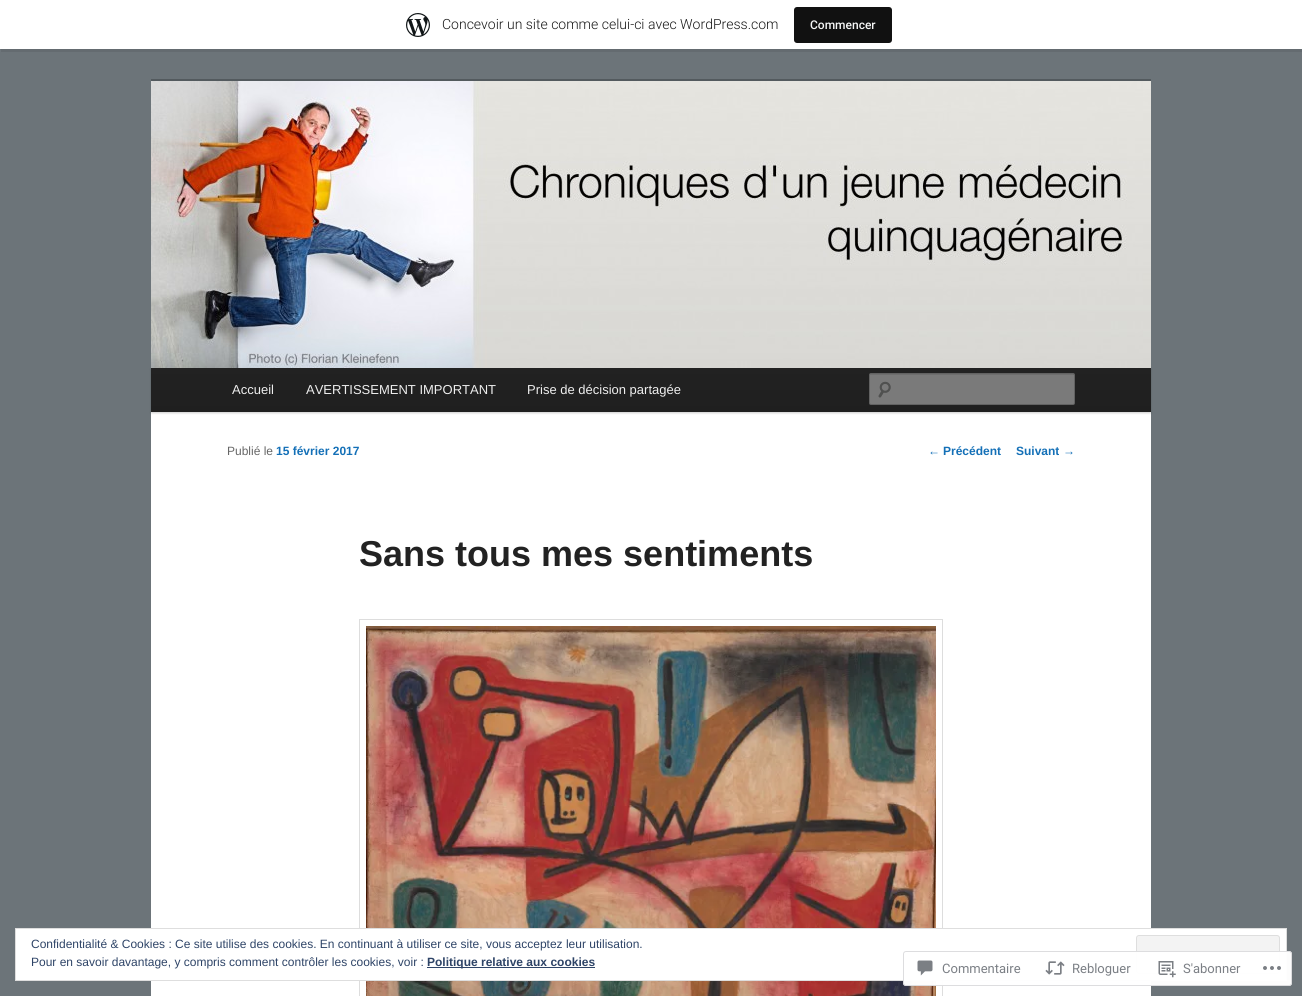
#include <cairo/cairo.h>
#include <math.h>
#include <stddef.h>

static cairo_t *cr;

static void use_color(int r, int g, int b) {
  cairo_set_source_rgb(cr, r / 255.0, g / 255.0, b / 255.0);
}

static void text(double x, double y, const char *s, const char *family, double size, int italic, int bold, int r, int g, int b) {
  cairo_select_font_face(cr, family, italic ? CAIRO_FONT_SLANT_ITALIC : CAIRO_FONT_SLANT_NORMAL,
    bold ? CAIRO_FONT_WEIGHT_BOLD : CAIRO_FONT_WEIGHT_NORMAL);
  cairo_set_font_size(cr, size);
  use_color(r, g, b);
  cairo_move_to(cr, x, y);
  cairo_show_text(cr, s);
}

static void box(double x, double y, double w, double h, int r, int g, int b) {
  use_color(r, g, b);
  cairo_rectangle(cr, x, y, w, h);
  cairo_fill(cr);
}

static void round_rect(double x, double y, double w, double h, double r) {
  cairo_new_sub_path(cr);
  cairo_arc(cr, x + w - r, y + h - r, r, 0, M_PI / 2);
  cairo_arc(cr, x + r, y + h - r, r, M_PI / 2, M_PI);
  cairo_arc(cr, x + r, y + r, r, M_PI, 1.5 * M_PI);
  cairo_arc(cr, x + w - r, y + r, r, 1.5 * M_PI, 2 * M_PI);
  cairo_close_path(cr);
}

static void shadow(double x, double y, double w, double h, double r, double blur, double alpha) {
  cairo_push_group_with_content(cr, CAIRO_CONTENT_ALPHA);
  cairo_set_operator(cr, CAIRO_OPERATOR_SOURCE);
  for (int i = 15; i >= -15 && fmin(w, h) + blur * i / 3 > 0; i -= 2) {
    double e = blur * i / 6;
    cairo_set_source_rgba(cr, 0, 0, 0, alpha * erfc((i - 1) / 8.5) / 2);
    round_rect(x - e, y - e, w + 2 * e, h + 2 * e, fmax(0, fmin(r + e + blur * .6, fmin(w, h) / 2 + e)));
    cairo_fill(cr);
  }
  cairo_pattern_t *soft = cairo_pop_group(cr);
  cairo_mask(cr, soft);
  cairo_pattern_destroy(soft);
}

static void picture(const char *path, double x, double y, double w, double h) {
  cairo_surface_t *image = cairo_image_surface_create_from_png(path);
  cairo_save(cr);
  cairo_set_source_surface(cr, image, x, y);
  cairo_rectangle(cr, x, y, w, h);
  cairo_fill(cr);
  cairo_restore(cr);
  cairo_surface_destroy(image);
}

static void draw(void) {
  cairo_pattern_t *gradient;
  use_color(108, 116, 121);
  cairo_paint(cr);
  cairo_set_source_rgba(cr, 0, 0, 0, 0.08);
  cairo_new_path(cr);
  cairo_move_to(cr, 1, 49);
  cairo_line_to(cr, 1, 52);
  cairo_line_to(cr, 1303, 52);
  cairo_line_to(cr, 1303, 3);
  cairo_line_to(cr, 1302, 3);
  cairo_line_to(cr, 1302, 49);
  cairo_close_path(cr);
  cairo_fill(cr);
  box(0, 0, 1302, 49, 255, 255, 255);
  picture("img_01.png", 406, 13, 24, 24);
  use_color(17, 17, 17);
  round_rect(794, 7, 98, 36, 3);
  cairo_fill(cr);
  box(151, 412, 1000, 584, 255, 255, 255);
  box(151, 79, 1000, 2, 83, 90, 94);
  use_color(0, 0, 0);
  shadow(151, 369, 1000, 44, 0, 1, 0.2);
  picture("img_02.png", 151, 81, 1000, 287);
  gradient = cairo_pattern_create_linear(651, 368, 651, 412);
  cairo_pattern_add_color_stop_rgba(gradient, 0, 0.133, 0.133, 0.133, 1);
  cairo_pattern_add_color_stop_rgba(gradient, 1, 0.122, 0.122, 0.122, 1);
  cairo_set_source(cr, gradient);
  cairo_pattern_destroy(gradient);
  cairo_rectangle(cr, 151, 368, 1000, 44);
  cairo_fill(cr);
  use_color(122, 122, 122);
  round_rect(869, 373, 206, 32, 2);
  cairo_fill(cr);
  picture("img_03.png", 878, 381, 13, 17);
  use_color(110, 110, 110);
  cairo_new_path(cr);
  cairo_move_to(cr, 871, 375);
  cairo_line_to(cr, 1074, 375);
  cairo_line_to(cr, 1074, 376);
  cairo_line_to(cr, 1074, 374);
  cairo_line_to(cr, 1073, 374);
  cairo_line_to(cr, 871, 374);
  cairo_curve_to(cr, 870, 374, 870, 375, 870, 376);
  cairo_curve_to(cr, 870, 375, 870, 375, 871, 375);
  cairo_close_path(cr);
  cairo_fill(cr);
  round_rect(869.5, 373.5, 205, 31, 1.5);
  cairo_set_source_rgba(cr, 0, 0, 0, 0.2);
  cairo_set_line_width(cr, 1);
  cairo_stroke(cr);
  cairo_rectangle(cr, 359.5, 619.5, 583, 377);
  use_color(221, 221, 221);
  cairo_stroke(cr);
  picture("img_04.png", 366, 626, 570, 370);
  use_color(255, 255, 255);
  cairo_rectangle(cr, 15.5, 928.5, 1271, 52);
  cairo_fill_preserve(cr);
  use_color(222, 222, 222);
  cairo_stroke(cr);
  use_color(243, 243, 243);
  round_rect(1136.5, 935.5, 143, 38, 2.5);
  cairo_fill_preserve(cr);
  use_color(222, 222, 222);
  cairo_stroke(cr);
  box(427, 967, 168, 1, 46, 68, 103);
  cairo_set_source_rgba(cr, 1, 1, 1, 0.98);
  round_rect(903, 951, 389, 35, 3);
  cairo_fill(cr);
  round_rect(903.5, 951.5, 388, 34, 2.5);
  cairo_set_source_rgba(cr, 0.863, 0.863, 0.871, 0.98);
  cairo_stroke(cr);
  picture("img_05.png", 917, 960, 16, 16);
  picture("img_06.png", 1045, 961, 20, 14);
  picture("img_07.png", 1158, 961, 18, 17);
  picture("img_08.png", 1263, 966, 18, 4);
  text(442, 29, "Concevoir un site comme celui-ci avec WordPress.com", "Roboto Light", 14, 0, 0, 23, 23, 23);
  text(810, 29, "Commencer", "Roboto Medium", 12, 0, 0, 246, 247, 247);
  text(232, 394, "Accueil", "Liberation Sans", 13, 0, 0, 238, 238, 238);
  text(306, 394, "AVERTISSEMENT IMPORTANT", "Liberation Sans", 13, 0, 0, 238, 238, 238);
  text(527, 394, "Prise de décision partagée", "Liberation Sans", 13, 0, 0, 238, 238, 238);
  text(227, 455, "Publié le", "Liberation Sans", 12, 0, 0, 102, 102, 102);
  text(276, 455, "15 février 2017", "Liberation Sans", 12, 0, 1, 20, 112, 183);
  text(359, 566, "Sans tous mes sentiments", "Liberation Sans", 36, 0, 1, 34, 34, 34);
  text(928, 455, "←", "Liberation Sans", 12, 0, 0, 20, 112, 183);
  text(943, 455, "Précédent", "Liberation Sans", 12, 0, 1, 20, 112, 183);
  text(1016, 455, "Suivant", "Liberation Sans", 12, 0, 1, 20, 112, 183);
  text(1063, 455, "→", "Liberation Sans", 12, 0, 0, 20, 112, 183);
  text(31, 948, "Confidentialité & Cookies : Ce site utilise des cookies. En continuant à utiliser ce site, vous acceptez leur utilisation.", "Liberation Sans", 12, 0, 0, 46, 68, 103);
  text(31, 966, "Pour en savoir davantage, y compris comment contrôler les cookies, voir :", "Liberation Sans", 12, 0, 0, 46, 68, 103);
  text(427, 966, "Politique relative aux cookies", "Liberation Sans", 12, 0, 1, 46, 68, 103);
  text(942, 973, "Commentaire", "Roboto", 13, 0, 0, 123, 127, 133);
  text(1072, 973, "Rebloguer", "Roboto", 13, 0, 0, 123, 127, 133);
  text(1183, 973, "S'abonner", "Roboto", 13, 0, 0, 123, 127, 133);
}

int main(void) {
  cairo_surface_t *surface = cairo_image_surface_create(CAIRO_FORMAT_RGB24, 1302, 996);
  cr = cairo_create(surface);
  cairo_font_options_t *options = cairo_font_options_create();
  cairo_font_options_set_hint_metrics(options, CAIRO_HINT_METRICS_OFF);
  cairo_font_options_set_hint_style(options, CAIRO_HINT_STYLE_NONE);
  cairo_set_font_options(cr, options);
  cairo_set_miter_limit(cr, 4);
  draw();
  cairo_surface_write_to_png(surface, "out.png");
  cairo_font_options_destroy(options);
  cairo_destroy(cr);
  cairo_surface_destroy(surface);
  return 0;
}
